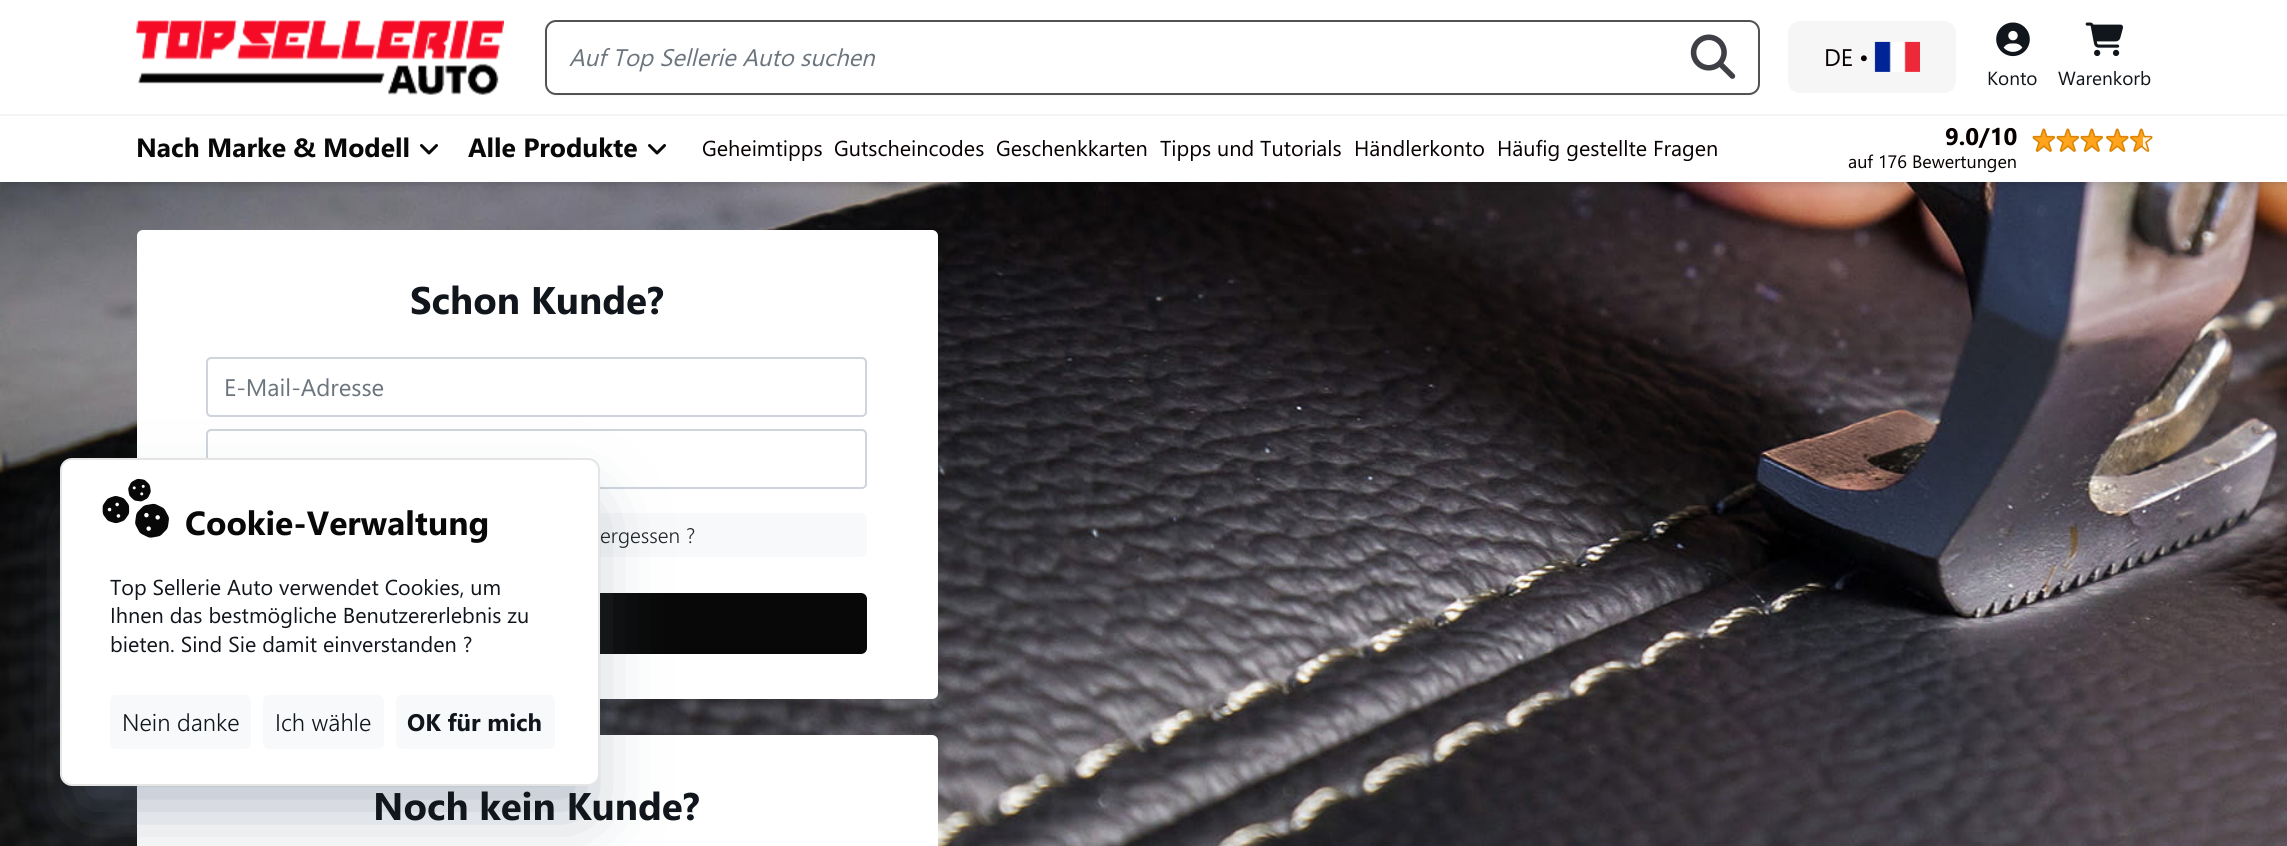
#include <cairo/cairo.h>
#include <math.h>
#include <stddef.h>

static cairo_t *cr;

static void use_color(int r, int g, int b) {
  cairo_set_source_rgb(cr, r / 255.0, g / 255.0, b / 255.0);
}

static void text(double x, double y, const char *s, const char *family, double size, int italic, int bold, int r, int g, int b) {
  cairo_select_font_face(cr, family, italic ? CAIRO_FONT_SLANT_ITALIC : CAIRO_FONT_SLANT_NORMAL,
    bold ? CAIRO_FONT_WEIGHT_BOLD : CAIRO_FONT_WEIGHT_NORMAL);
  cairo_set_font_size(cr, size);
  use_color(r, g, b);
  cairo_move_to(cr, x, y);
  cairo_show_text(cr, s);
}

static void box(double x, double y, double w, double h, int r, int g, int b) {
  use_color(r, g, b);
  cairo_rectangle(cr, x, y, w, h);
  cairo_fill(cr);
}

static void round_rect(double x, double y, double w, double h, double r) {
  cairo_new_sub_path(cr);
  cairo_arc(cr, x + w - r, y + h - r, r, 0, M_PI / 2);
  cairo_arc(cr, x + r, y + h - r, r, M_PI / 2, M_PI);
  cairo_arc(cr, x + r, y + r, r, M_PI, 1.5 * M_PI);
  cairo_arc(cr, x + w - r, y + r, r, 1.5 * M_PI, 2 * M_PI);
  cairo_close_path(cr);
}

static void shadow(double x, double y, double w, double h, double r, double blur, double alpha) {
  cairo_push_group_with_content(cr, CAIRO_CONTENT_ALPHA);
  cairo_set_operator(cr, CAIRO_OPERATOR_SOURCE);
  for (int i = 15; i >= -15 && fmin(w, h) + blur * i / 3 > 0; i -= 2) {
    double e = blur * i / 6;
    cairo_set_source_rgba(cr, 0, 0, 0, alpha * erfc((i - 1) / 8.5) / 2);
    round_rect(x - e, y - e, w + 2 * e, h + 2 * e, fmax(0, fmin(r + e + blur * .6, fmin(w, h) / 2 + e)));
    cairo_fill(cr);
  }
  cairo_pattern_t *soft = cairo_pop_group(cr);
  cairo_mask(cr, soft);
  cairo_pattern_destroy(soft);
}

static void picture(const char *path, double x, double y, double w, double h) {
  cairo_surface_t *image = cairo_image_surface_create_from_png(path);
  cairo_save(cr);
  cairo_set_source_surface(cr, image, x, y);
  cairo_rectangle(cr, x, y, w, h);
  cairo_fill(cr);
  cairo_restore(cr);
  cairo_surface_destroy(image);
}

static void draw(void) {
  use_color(255, 255, 255);
  cairo_paint(cr);
  picture("img_10.png", 0, 182, 2287, 664);
  use_color(0, 0, 0);
  shadow(3, 6, 2282, 176, 0, 3, 0.1);
  shadow(2, 8, 2284, 178, 0, 4.5, 0.1);
  box(0, 1, 2287, 113, 255, 255, 255);
  picture("img_01.png", 136, 20, 368, 75);
  use_color(0, 0, 0);
  shadow(546, 23, 1212, 72, 9, 1.5, 0.08);
  use_color(255, 255, 255);
  round_rect(546, 21, 1212, 72, 9);
  cairo_fill(cr);
  round_rect(546, 21, 1213, 73, 10);
  use_color(82, 82, 82);
  cairo_stroke(cr);
  picture("img_02.png", 1690, 34, 46, 45);
  use_color(246, 246, 247);
  round_rect(1788, 21, 168, 72, 12);
  cairo_fill(cr);
  picture("img_03.png", 1874, 41, 46, 31);
  picture("img_04.png", 1996, 22, 34, 35);
  picture("img_05.png", 2085, 22, 38, 35);
  box(0, 116, 2287, 66, 255, 255, 255);
  box(0, 114, 2287, 2, 244, 244, 245);
  picture("img_06.png", 420, 144, 18, 11);
  picture("img_06.png", 648, 144, 18, 11);
  picture("img_07.png", 2032, 128, 23, 24);
  picture("img_07.png", 2056, 128, 23, 24);
  picture("img_07.png", 2080, 128, 23, 24);
  picture("img_08.png", 2106, 128, 23, 24);
  picture("img_09.png", 2130, 128, 23, 24);
  use_color(255, 255, 255);
  round_rect(137, 230, 801, 469, 6);
  cairo_fill(cr);
  round_rect(207, 358, 659, 58, 4);
  use_color(206, 212, 218);
  cairo_stroke(cr);
  round_rect(207, 430, 659, 58, 4);
  cairo_stroke(cr);
  use_color(248, 249, 250);
  round_rect(206, 513, 661, 44, 6);
  cairo_fill(cr);
  use_color(8, 8, 8);
  round_rect(206, 593, 661, 61, 6);
  cairo_fill(cr);
  use_color(255, 255, 255);
  round_rect(137, 735, 801, 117, 6);
  cairo_fill(cr);
  use_color(100, 116, 139);
  shadow(78, 513, 504, 293, 0, 37.5, 0.5);
  use_color(255, 255, 255);
  round_rect(61, 459, 538, 326, 11);
  cairo_fill_preserve(cr);
  use_color(229, 229, 229);
  cairo_stroke(cr);
  picture("img_11.png", 128, 478, 23, 24);
  picture("img_12.png", 102, 496, 28, 28);
  picture("img_13.png", 135, 503, 34, 35);
  use_color(248, 249, 250);
  round_rect(110, 695, 141, 54, 6);
  cairo_fill(cr);
  round_rect(263, 695, 121, 54, 6);
  cairo_fill(cr);
  round_rect(396, 695, 159, 54, 6);
  cairo_fill(cr);
  text(569, 66, "Auf Top Sellerie Auto suchen", "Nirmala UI", 24, 1, 0, 108, 117, 125);
  text(1824, 66, "DE", "Nirmala UI", 24, 0, 0, 8, 0, 0);
  text(1859, 66, "•", "Nirmala UI", 24, 0, 0, 8, 0, 0);
  text(1987, 85, "Konto", "Nirmala UI", 19, 0, 0, 17, 22, 28);
  text(2058, 85, "Warenkorb", "Nirmala UI", 19, 0, 0, 17, 22, 28);
  text(136, 157, "Nach Marke & Modell", "Nirmala UI", 26.4, 0, 1, 8, 8, 8);
  text(468, 157, "Alle Produkte", "Nirmala UI", 26.4, 0, 1, 8, 8, 8);
  text(702, 156, "Geheimtipps", "Nirmala UI", 21.6, 0, 0, 8, 0, 0);
  text(834, 156, "Gutscheincodes", "Nirmala UI", 21.6, 0, 0, 8, 0, 0);
  text(996, 156, "Geschenkkarten", "Nirmala UI", 21.6, 0, 0, 8, 0, 0);
  text(1160, 156, "Tipps und Tutorials", "Nirmala UI", 21.6, 0, 0, 8, 0, 0);
  text(1354, 156, "Händlerkonto", "Nirmala UI", 21.6, 0, 0, 8, 0, 0);
  text(1497, 156, "Häufig gestellte Fragen", "Nirmala UI", 21.6, 0, 0, 8, 0, 0);
  text(1945, 145, "9.0/10", "Nirmala UI", 24, 0, 1, 8, 0, 0);
  text(1848, 168, "auf 176 Bewertungen", "Nirmala UI", 18, 0, 0, 8, 0, 0);
  text(410, 314, "Schon Kunde?", "Nirmala UI", 38.5, 0, 1, 17, 22, 28);
  text(224, 396, "E-Mail-Adresse", "Nirmala UI", 24, 0, 0, 108, 117, 125);
  text(600, 543, "ergessen ?", "Nirmala UI Light", 21, 0, 0, 33, 37, 41);
  text(373, 820, "Noch kein Kunde?", "Nirmala UI", 38.5, 0, 1, 17, 22, 28);
  text(185, 535, "Cookie-Verwaltung", "Nirmala UI", 33.5, 0, 1, 8, 8, 8);
  text(110, 595, "Top Sellerie Auto verwendet Cookies, um", "Nirmala UI", 21.6, 0, 0, 17, 22, 28);
  text(110, 623, "Ihnen das bestmögliche Benutzererlebnis zu", "Nirmala UI", 21.6, 0, 0, 17, 22, 28);
  text(110, 652, "bieten. Sind Sie damit einverstanden ?", "Nirmala UI", 21.6, 0, 0, 17, 22, 28);
  text(122, 731, "Nein danke", "Nirmala UI Light", 24, 0, 0, 17, 22, 28);
  text(275, 731, "Ich wähle", "Nirmala UI Light", 24, 0, 0, 17, 22, 28);
  text(407, 731, "OK für mich", "Nirmala UI", 24, 0, 1, 17, 22, 28);
}

int main(void) {
  cairo_surface_t *surface = cairo_image_surface_create(CAIRO_FORMAT_RGB24, 2287, 846);
  cr = cairo_create(surface);
  cairo_font_options_t *options = cairo_font_options_create();
  cairo_font_options_set_hint_metrics(options, CAIRO_HINT_METRICS_OFF);
  cairo_font_options_set_hint_style(options, CAIRO_HINT_STYLE_NONE);
  cairo_set_font_options(cr, options);
  cairo_set_miter_limit(cr, 4);
  draw();
  cairo_surface_write_to_png(surface, "out.png");
  cairo_font_options_destroy(options);
  cairo_destroy(cr);
  cairo_surface_destroy(surface);
  return 0;
}
